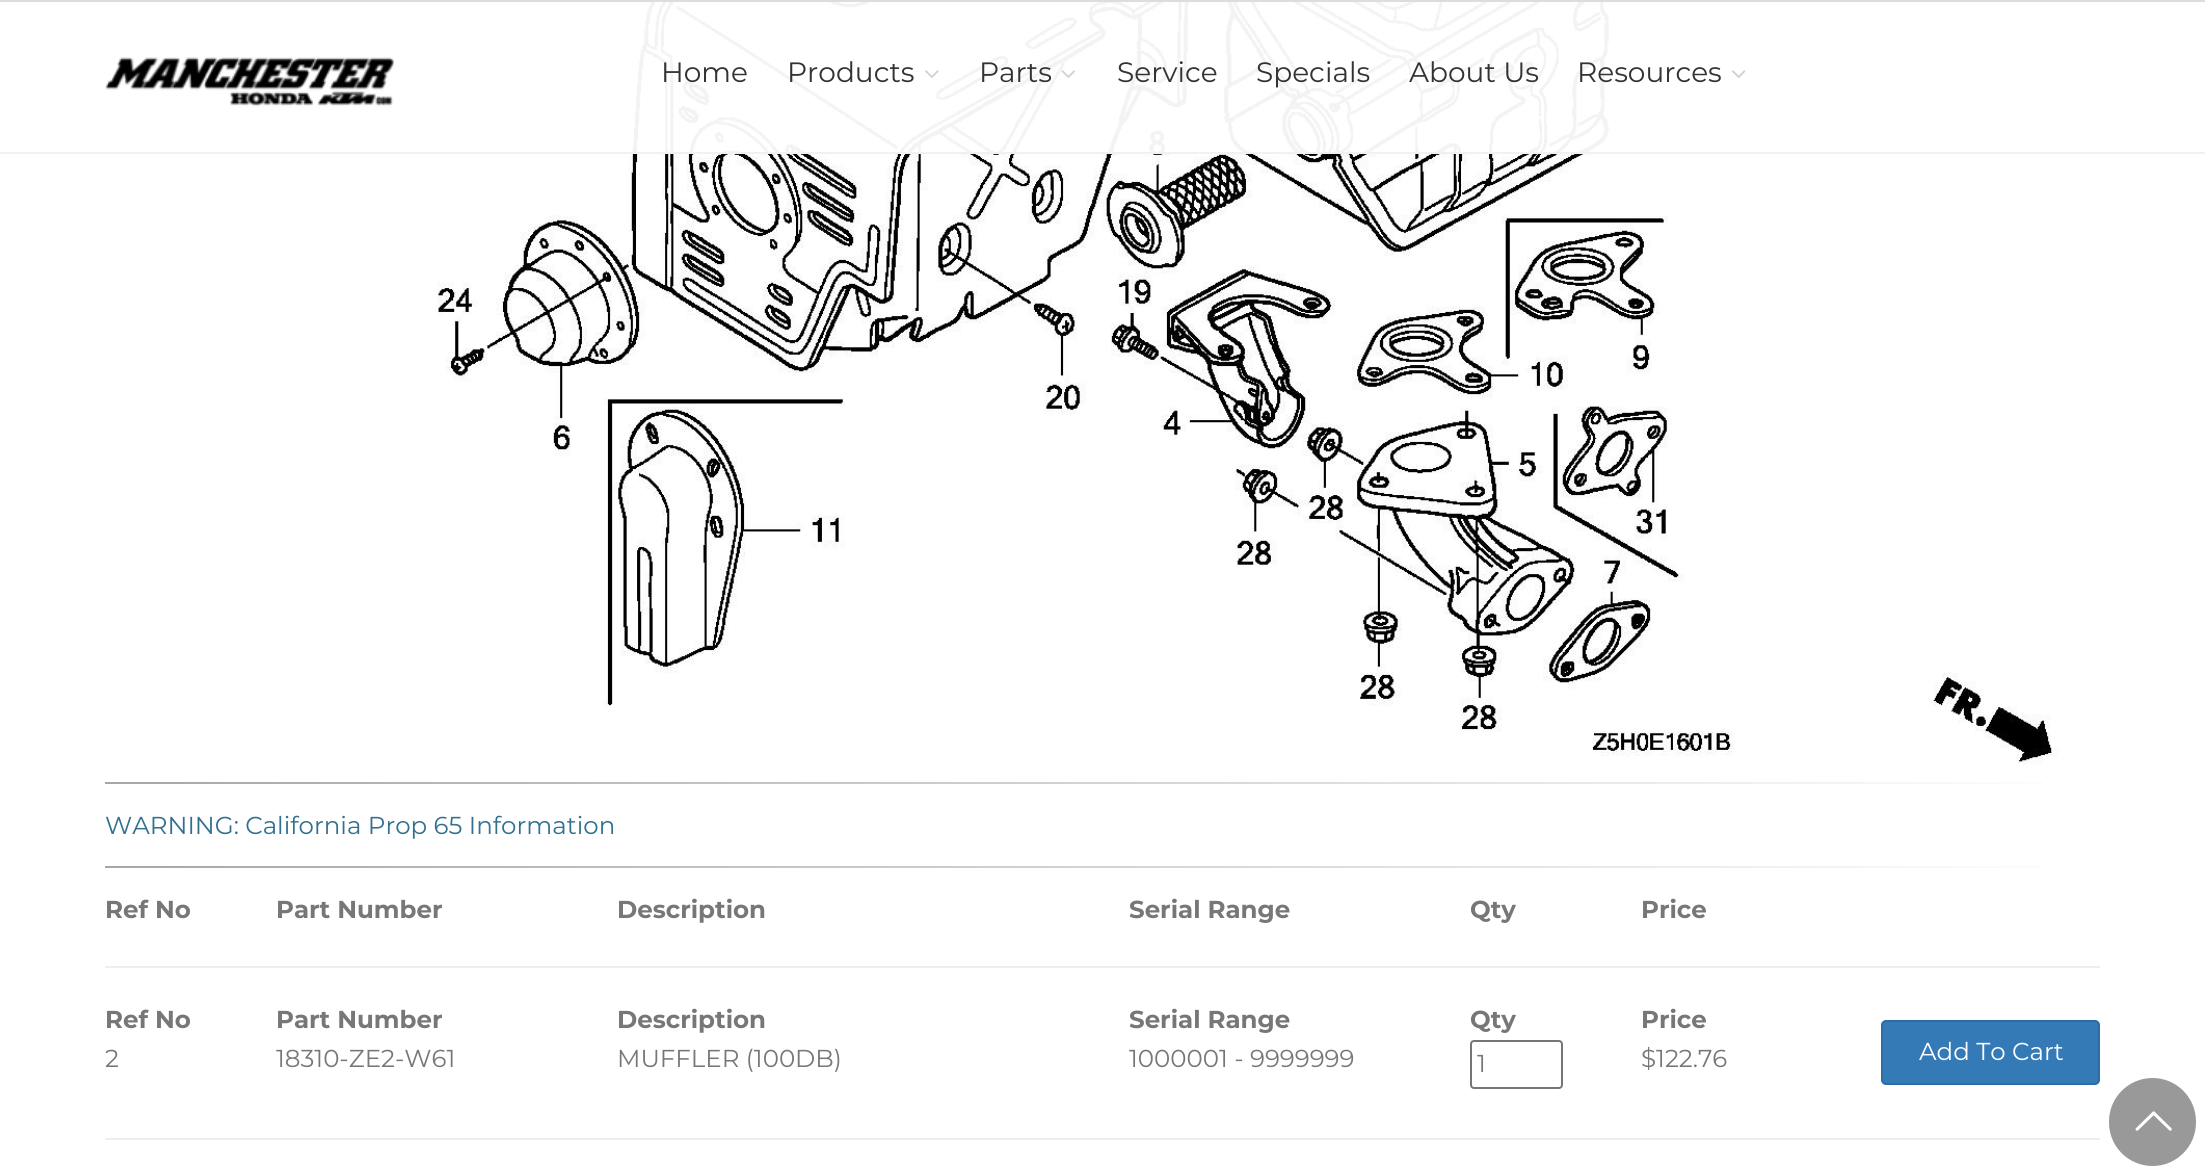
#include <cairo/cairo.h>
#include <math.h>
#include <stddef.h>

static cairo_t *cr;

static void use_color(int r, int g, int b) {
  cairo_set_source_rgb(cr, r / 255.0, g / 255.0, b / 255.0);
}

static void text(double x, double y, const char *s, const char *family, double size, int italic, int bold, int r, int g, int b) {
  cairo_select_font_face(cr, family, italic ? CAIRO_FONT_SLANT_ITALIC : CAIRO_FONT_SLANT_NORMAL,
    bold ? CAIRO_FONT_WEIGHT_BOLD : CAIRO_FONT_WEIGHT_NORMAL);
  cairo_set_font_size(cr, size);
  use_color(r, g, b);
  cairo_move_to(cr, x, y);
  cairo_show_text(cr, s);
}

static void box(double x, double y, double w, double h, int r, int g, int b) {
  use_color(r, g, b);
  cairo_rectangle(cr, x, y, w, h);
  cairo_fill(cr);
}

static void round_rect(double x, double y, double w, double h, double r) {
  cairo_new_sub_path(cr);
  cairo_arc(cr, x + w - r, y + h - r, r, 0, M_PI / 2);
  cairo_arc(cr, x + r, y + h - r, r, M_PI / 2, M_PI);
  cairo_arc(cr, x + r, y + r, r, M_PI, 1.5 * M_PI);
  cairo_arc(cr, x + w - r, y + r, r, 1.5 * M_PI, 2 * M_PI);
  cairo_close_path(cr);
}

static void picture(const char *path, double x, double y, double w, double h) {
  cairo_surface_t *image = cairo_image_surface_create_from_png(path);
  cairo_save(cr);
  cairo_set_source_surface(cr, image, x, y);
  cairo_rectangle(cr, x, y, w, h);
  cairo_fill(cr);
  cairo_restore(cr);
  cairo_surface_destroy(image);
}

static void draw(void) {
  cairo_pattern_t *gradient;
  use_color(255, 255, 255);
  cairo_paint(cr);
  picture("img_05.png", 437, 2, 1622, 763);
  cairo_set_source_rgba(cr, 1, 1, 1, 0.95);
  cairo_rectangle(cr, 628, 2, 982, 150);
  cairo_fill(cr);
  box(0, 0, 2205, 2, 221, 221, 221);
  box(0, 152, 2205, 2, 241, 241, 241);
  picture("img_01.png", 105, 57, 289, 50);
  picture("img_02.png", 925, 70, 14, 8);
  picture("img_03.png", 1061, 70, 14, 8);
  picture("img_04.png", 1732, 70, 14, 8);
  gradient = cairo_pattern_create_linear(105, 783, 2100, 783);
  cairo_pattern_add_color_stop_rgba(gradient, 0, 0.655, 0.655, 0.655, 1);
  cairo_pattern_add_color_stop_rgba(gradient, 1, 1, 1, 1, 1);
  cairo_set_source(cr, gradient);
  cairo_pattern_destroy(gradient);
  cairo_rectangle(cr, 105, 782, 1938, 2);
  cairo_fill(cr);
  gradient = cairo_pattern_create_linear(105, 867, 2100, 867);
  cairo_pattern_add_color_stop_rgba(gradient, 0, 0.655, 0.655, 0.655, 1);
  cairo_pattern_add_color_stop_rgba(gradient, 1, 1, 1, 1, 1);
  cairo_set_source(cr, gradient);
  cairo_pattern_destroy(gradient);
  cairo_rectangle(cr, 105, 866, 1938, 2);
  cairo_fill(cr);
  box(105, 966, 1995, 2, 238, 238, 238);
  round_rect(1471, 1041, 91, 47, 3);
  use_color(118, 118, 118);
  cairo_stroke(cr);
  use_color(51, 122, 183);
  round_rect(1882, 1021, 217, 63, 4);
  cairo_fill_preserve(cr);
  use_color(46, 109, 164);
  cairo_stroke(cr);
  box(105, 1138, 1995, 2, 238, 238, 238);
  use_color(153, 153, 153);
  round_rect(2109, 1078, 87, 88, 43.5);
  cairo_fill(cr);
  picture("img_06.png", 2135, 1111, 37, 20);
  text(661, 82, "Home", "Montserrat", 28, 0, 0, 51, 51, 51);
  text(787, 82, "Products", "Montserrat", 28, 0, 0, 51, 51, 51);
  text(979, 82, "Parts", "Montserrat", 28, 0, 0, 51, 51, 51);
  text(1117, 82, "Service", "Montserrat", 28, 0, 0, 51, 51, 51);
  text(1256, 82, "Specials", "Montserrat", 28, 0, 0, 51, 51, 51);
  text(1409, 82, "About Us", "Montserrat", 28, 0, 0, 51, 51, 51);
  text(1577, 82, "Resources", "Montserrat", 28, 0, 0, 51, 51, 51);
  text(105, 834, "WARNING: California Prop 65 Information", "Montserrat", 24.5, 0, 0, 49, 112, 143);
  text(105, 918, "Ref No", "Montserrat", 24.5, 0, 1, 119, 119, 119);
  text(276, 918, "Part Number", "Montserrat", 24.5, 0, 1, 119, 119, 119);
  text(617, 918, "Description", "Montserrat", 24.5, 0, 1, 119, 119, 119);
  text(1129, 918, "Serial Range", "Montserrat", 24.5, 0, 1, 119, 119, 119);
  text(1470, 918, "Qty", "Montserrat", 24.5, 0, 1, 119, 119, 119);
  text(1641, 918, "Price", "Montserrat", 24.5, 0, 1, 119, 119, 119);
  text(105, 1028, "Ref No", "Montserrat", 24.5, 0, 1, 119, 119, 119);
  text(105, 1067, "2", "Montserrat", 24.5, 0, 0, 119, 119, 119);
  text(276, 1028, "Part Number", "Montserrat", 24.5, 0, 1, 119, 119, 119);
  text(276, 1067, "18310-ZE2-W61", "Montserrat", 24.5, 0, 0, 119, 119, 119);
  text(617, 1028, "Description", "Montserrat", 24.5, 0, 1, 119, 119, 119);
  text(617, 1067, "MUFFLER (100DB)", "Montserrat", 24.5, 0, 0, 119, 119, 119);
  text(1129, 1028, "Serial Range", "Montserrat", 24.5, 0, 1, 119, 119, 119);
  text(1129, 1067, "1000001 - 9999999", "Montserrat", 24.5, 0, 0, 119, 119, 119);
  text(1470, 1028, "Qty", "Montserrat", 24.5, 0, 1, 119, 119, 119);
  text(1477, 1072, "1", "Montserrat", 24.5, 0, 0, 119, 119, 119);
  text(1641, 1028, "Price", "Montserrat", 24.5, 0, 1, 119, 119, 119);
  text(1641, 1067, "$122.76", "Montserrat", 24.5, 0, 0, 119, 119, 119);
  text(1919, 1060, "Add To Cart", "Montserrat", 24.5, 0, 0, 255, 255, 255);
}

int main(void) {
  cairo_surface_t *surface = cairo_image_surface_create(CAIRO_FORMAT_RGB24, 2205, 1173);
  cr = cairo_create(surface);
  cairo_font_options_t *options = cairo_font_options_create();
  cairo_font_options_set_hint_metrics(options, CAIRO_HINT_METRICS_OFF);
  cairo_font_options_set_hint_style(options, CAIRO_HINT_STYLE_NONE);
  cairo_set_font_options(cr, options);
  cairo_set_miter_limit(cr, 4);
  draw();
  cairo_surface_write_to_png(surface, "out.png");
  cairo_font_options_destroy(options);
  cairo_destroy(cr);
  cairo_surface_destroy(surface);
  return 0;
}
